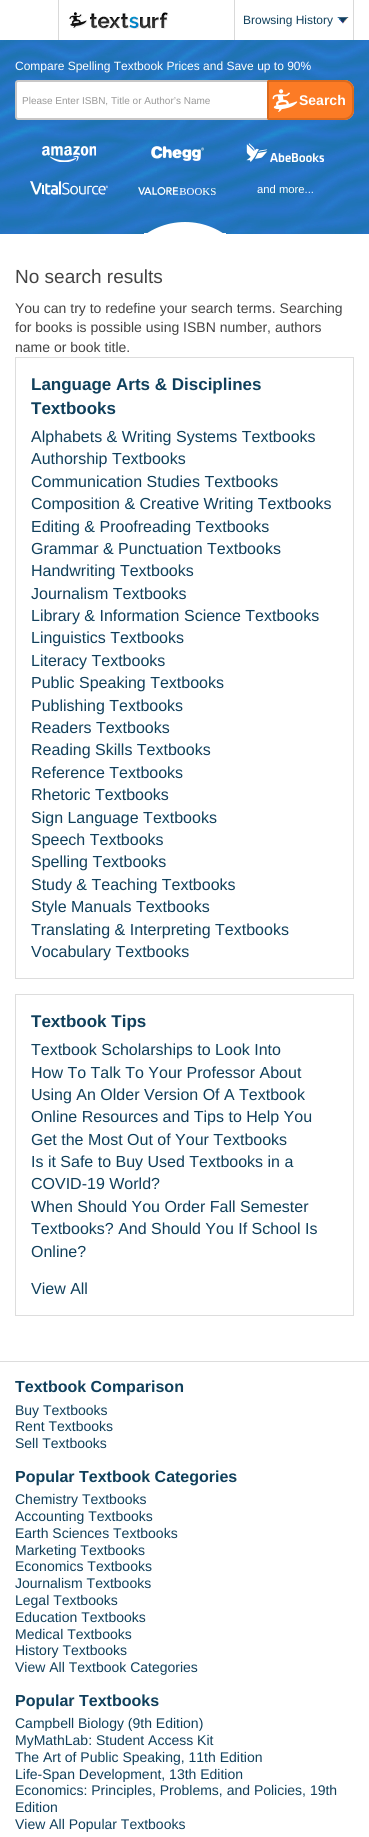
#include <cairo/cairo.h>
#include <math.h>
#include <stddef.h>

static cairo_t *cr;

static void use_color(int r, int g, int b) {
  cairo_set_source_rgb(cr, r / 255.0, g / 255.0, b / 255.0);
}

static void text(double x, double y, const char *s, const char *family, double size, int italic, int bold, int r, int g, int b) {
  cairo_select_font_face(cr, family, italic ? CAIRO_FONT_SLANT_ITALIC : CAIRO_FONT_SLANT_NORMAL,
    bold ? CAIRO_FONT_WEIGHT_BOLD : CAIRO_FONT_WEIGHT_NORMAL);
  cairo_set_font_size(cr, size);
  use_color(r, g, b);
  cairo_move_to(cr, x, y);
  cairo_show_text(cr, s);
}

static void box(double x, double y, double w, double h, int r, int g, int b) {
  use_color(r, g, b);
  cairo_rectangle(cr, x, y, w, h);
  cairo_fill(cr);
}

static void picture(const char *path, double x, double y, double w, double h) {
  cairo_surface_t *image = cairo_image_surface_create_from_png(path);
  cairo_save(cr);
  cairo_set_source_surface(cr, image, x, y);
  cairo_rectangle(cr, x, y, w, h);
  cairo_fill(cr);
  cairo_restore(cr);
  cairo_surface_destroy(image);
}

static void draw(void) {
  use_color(255, 255, 255);
  cairo_paint(cr);
  box(58, 0, 1, 44, 217, 217, 217);
  picture("img_01.png", 69, 12, 100, 17);
  picture("img_02.png", 337, 17, 12, 7);
  box(353, 0, 1, 40, 217, 217, 217);
  box(234, 0, 1, 40, 217, 217, 217);
  picture("img_03.png", 0, 40, 369, 194);
  use_color(255, 255, 255);
  cairo_new_path(cr);
  cairo_move_to(cr, 18, 81);
  cairo_line_to(cr, 344, 81);
  cairo_curve_to(cr, 349, 81, 353, 85, 353, 90);
  cairo_line_to(cr, 353, 110);
  cairo_curve_to(cr, 353, 115, 349, 119, 344, 119);
  cairo_line_to(cr, 18, 119);
  cairo_curve_to(cr, 17, 119, 16, 118, 16, 117);
  cairo_line_to(cr, 16, 83);
  cairo_curve_to(cr, 16, 82, 17, 81, 18, 81);
  cairo_close_path(cr);
  cairo_fill_preserve(cr);
  use_color(200, 199, 199);
  cairo_stroke(cr);
  use_color(252, 123, 37);
  cairo_new_path(cr);
  cairo_move_to(cr, 269, 80);
  cairo_line_to(cr, 344, 80);
  cairo_curve_to(cr, 349.5, 80, 354, 84.5, 354, 90);
  cairo_line_to(cr, 354, 110);
  cairo_curve_to(cr, 354, 115.5, 349.5, 120, 344, 120);
  cairo_line_to(cr, 269, 120);
  cairo_curve_to(cr, 268, 120, 267, 119, 267, 118);
  cairo_line_to(cr, 267, 82);
  cairo_curve_to(cr, 267, 81, 268, 80, 269, 80);
  cairo_close_path(cr);
  cairo_fill(cr);
  picture("img_04.png", 272, 89, 26, 23);
  cairo_new_path(cr);
  cairo_move_to(cr, 269, 81);
  cairo_line_to(cr, 344, 81);
  cairo_curve_to(cr, 349, 81, 353, 85, 353, 90);
  cairo_line_to(cr, 353, 110);
  cairo_curve_to(cr, 353, 115, 349, 119, 344, 119);
  cairo_line_to(cr, 269, 119);
  cairo_curve_to(cr, 268.5, 119, 268, 118.5, 268, 118);
  cairo_line_to(cr, 268, 82);
  cairo_curve_to(cr, 268, 81.5, 268.5, 81, 269, 81);
  cairo_close_path(cr);
  use_color(219, 106, 30);
  cairo_stroke(cr);
  picture("img_05.png", 42, 146, 54, 16);
  picture("img_06.png", 151, 146, 53, 15);
  picture("img_07.png", 246, 143, 78, 19);
  picture("img_08.png", 30, 181, 78, 14);
  picture("img_09.png", 138, 187, 78, 8);
  picture("img_10.png", 144, 222, 82, 12);
  cairo_rectangle(cr, 15.5, 357.5, 338, 621);
  use_color(221, 221, 221);
  cairo_set_line_width(cr, 1);
  cairo_stroke(cr);
  cairo_rectangle(cr, 15.5, 994.5, 338, 321);
  cairo_stroke(cr);
  box(0, 1361, 369, 1, 221, 221, 221);
  text(243, 24, "Browsing History", "Liberation Sans", 12, 0, 0, 16, 64, 92);
  text(15, 70, "Compare Spelling Textbook Prices and Save up to 90%", "Liberation Sans", 12, 0, 0, 255, 255, 255);
  text(22, 104, "Please Enter ISBN, Title or Author’s Name", "Liberation Sans", 10, 0, 0, 153, 153, 153);
  text(299, 105, "Search", "Liberation Sans", 14, 0, 1, 255, 255, 255);
  text(257, 193, "and more...", "Liberation Sans", 11.25, 0, 0, 255, 255, 255);
  text(15, 283, "No search results", "Liberation Sans", 19, 0, 0, 67, 67, 67);
  text(15, 313, "You can try to redefine your search terms. Searching", "Liberation Sans", 14, 0, 0, 67, 67, 67);
  text(15, 332, "for books is possible using ISBN number, authors", "Liberation Sans", 14, 0, 0, 67, 67, 67);
  text(15, 352, "name or book title.", "Liberation Sans", 14, 0, 0, 67, 67, 67);
  text(31, 390, "Language Arts & Disciplines", "Liberation Sans", 17, 0, 1, 16, 64, 92);
  text(31, 414, "Textbooks", "Liberation Sans", 17, 0, 1, 16, 64, 92);
  text(31, 442, "Alphabets & Writing Systems Textbooks", "Liberation Sans", 16, 0, 0, 16, 64, 92);
  text(31, 464, "Authorship Textbooks", "Liberation Sans", 16, 0, 0, 16, 64, 92);
  text(31, 487, "Communication Studies Textbooks", "Liberation Sans", 16, 0, 0, 16, 64, 92);
  text(31, 509, "Composition & Creative Writing Textbooks", "Liberation Sans", 16, 0, 0, 16, 64, 92);
  text(31, 532, "Editing & Proofreading Textbooks", "Liberation Sans", 16, 0, 0, 16, 64, 92);
  text(31, 554, "Grammar & Punctuation Textbooks", "Liberation Sans", 16, 0, 0, 16, 64, 92);
  text(31, 576, "Handwriting Textbooks", "Liberation Sans", 16, 0, 0, 16, 64, 92);
  text(31, 599, "Journalism Textbooks", "Liberation Sans", 16, 0, 0, 16, 64, 92);
  text(31, 621, "Library & Information Science Textbooks", "Liberation Sans", 16, 0, 0, 16, 64, 92);
  text(31, 643, "Linguistics Textbooks", "Liberation Sans", 16, 0, 0, 16, 64, 92);
  text(31, 666, "Literacy Textbooks", "Liberation Sans", 16, 0, 0, 16, 64, 92);
  text(31, 688, "Public Speaking Textbooks", "Liberation Sans", 16, 0, 0, 16, 64, 92);
  text(31, 711, "Publishing Textbooks", "Liberation Sans", 16, 0, 0, 16, 64, 92);
  text(31, 733, "Readers Textbooks", "Liberation Sans", 16, 0, 0, 16, 64, 92);
  text(31, 755, "Reading Skills Textbooks", "Liberation Sans", 16, 0, 0, 16, 64, 92);
  text(31, 778, "Reference Textbooks", "Liberation Sans", 16, 0, 0, 16, 64, 92);
  text(31, 800, "Rhetoric Textbooks", "Liberation Sans", 16, 0, 0, 16, 64, 92);
  text(31, 823, "Sign Language Textbooks", "Liberation Sans", 16, 0, 0, 16, 64, 92);
  text(31, 845, "Speech Textbooks", "Liberation Sans", 16, 0, 0, 16, 64, 92);
  text(31, 867, "Spelling Textbooks", "Liberation Sans", 16, 0, 0, 16, 64, 92);
  text(31, 890, "Study & Teaching Textbooks", "Liberation Sans", 16, 0, 0, 16, 64, 92);
  text(31, 912, "Style Manuals Textbooks", "Liberation Sans", 16, 0, 0, 16, 64, 92);
  text(31, 935, "Translating & Interpreting Textbooks", "Liberation Sans", 16, 0, 0, 16, 64, 92);
  text(31, 957, "Vocabulary Textbooks", "Liberation Sans", 16, 0, 0, 16, 64, 92);
  text(31, 1027, "Textbook Tips", "Liberation Sans", 17, 0, 1, 16, 64, 92);
  text(31, 1055, "Textbook Scholarships to Look Into", "Liberation Sans", 16, 0, 0, 16, 64, 92);
  text(31, 1078, "How To Talk To Your Professor About", "Liberation Sans", 16, 0, 0, 16, 64, 92);
  text(31, 1100, "Using An Older Version Of A Textbook", "Liberation Sans", 16, 0, 0, 16, 64, 92);
  text(31, 1122, "Online Resources and Tips to Help You", "Liberation Sans", 16, 0, 0, 16, 64, 92);
  text(31, 1145, "Get the Most Out of Your Textbooks", "Liberation Sans", 16, 0, 0, 16, 64, 92);
  text(31, 1167, "Is it Safe to Buy Used Textbooks in a", "Liberation Sans", 16, 0, 0, 16, 64, 92);
  text(31, 1189, "COVID-19 World?", "Liberation Sans", 16, 0, 0, 16, 64, 92);
  text(31, 1212, "When Should You Order Fall Semester", "Liberation Sans", 16, 0, 0, 16, 64, 92);
  text(31, 1234, "Textbooks? And Should You If School Is", "Liberation Sans", 16, 0, 0, 16, 64, 92);
  text(31, 1257, "Online?", "Liberation Sans", 16, 0, 0, 16, 64, 92);
  text(31, 1294, "View All", "Liberation Sans", 16, 0, 0, 16, 64, 92);
  text(15, 1392, "Textbook Comparison", "Liberation Sans", 16, 0, 1, 16, 64, 92);
  text(15, 1415, "Buy Textbooks", "Liberation Sans", 14, 0, 0, 16, 64, 92);
  text(15, 1431, "Rent Textbooks", "Liberation Sans", 14, 0, 0, 16, 64, 92);
  text(15, 1448, "Sell Textbooks", "Liberation Sans", 14, 0, 0, 16, 64, 92);
  text(15, 1482, "Popular Textbook Categories", "Liberation Sans", 16, 0, 1, 16, 64, 92);
  text(15, 1504, "Chemistry Textbooks", "Liberation Sans", 14, 0, 0, 16, 64, 92);
  text(15, 1521, "Accounting Textbooks", "Liberation Sans", 14, 0, 0, 16, 64, 92);
  text(15, 1538, "Earth Sciences Textbooks", "Liberation Sans", 14, 0, 0, 16, 64, 92);
  text(15, 1555, "Marketing Textbooks", "Liberation Sans", 14, 0, 0, 16, 64, 92);
  text(15, 1571, "Economics Textbooks", "Liberation Sans", 14, 0, 0, 16, 64, 92);
  text(15, 1588, "Journalism Textbooks", "Liberation Sans", 14, 0, 0, 16, 64, 92);
  text(15, 1605, "Legal Textbooks", "Liberation Sans", 14, 0, 0, 16, 64, 92);
  text(15, 1622, "Education Textbooks", "Liberation Sans", 14, 0, 0, 16, 64, 92);
  text(15, 1639, "Medical Textbooks", "Liberation Sans", 14, 0, 0, 16, 64, 92);
  text(15, 1655, "History Textbooks", "Liberation Sans", 14, 0, 0, 16, 64, 92);
  text(15, 1672, "View All Textbook Categories", "Liberation Sans", 14, 0, 0, 16, 64, 92);
  text(15, 1706, "Popular Textbooks", "Liberation Sans", 16, 0, 1, 16, 64, 92);
  text(15, 1728, "Campbell Biology (9th Edition)", "Liberation Sans", 14, 0, 0, 16, 64, 92);
  text(15, 1745, "MyMathLab: Student Access Kit", "Liberation Sans", 14, 0, 0, 16, 64, 92);
  text(15, 1762, "The Art of Public Speaking, 11th Edition", "Liberation Sans", 14, 0, 0, 16, 64, 92);
  text(15, 1779, "Life-Span Development, 13th Edition", "Liberation Sans", 14, 0, 0, 16, 64, 92);
  text(15, 1795, "Economics: Principles, Problems, and Policies, 19th", "Liberation Sans", 14, 0, 0, 16, 64, 92);
  text(15, 1812, "Edition", "Liberation Sans", 14, 0, 0, 16, 64, 92);
  text(15, 1829, "View All Popular Textbooks", "Liberation Sans", 14, 0, 0, 16, 64, 92);
}

int main(void) {
  cairo_surface_t *surface = cairo_image_surface_create(CAIRO_FORMAT_RGB24, 369, 1837);
  cr = cairo_create(surface);
  cairo_font_options_t *options = cairo_font_options_create();
  cairo_font_options_set_hint_metrics(options, CAIRO_HINT_METRICS_OFF);
  cairo_font_options_set_hint_style(options, CAIRO_HINT_STYLE_NONE);
  cairo_set_font_options(cr, options);
  cairo_set_miter_limit(cr, 4);
  draw();
  cairo_surface_write_to_png(surface, "out.png");
  cairo_font_options_destroy(options);
  cairo_destroy(cr);
  cairo_surface_destroy(surface);
  return 0;
}
